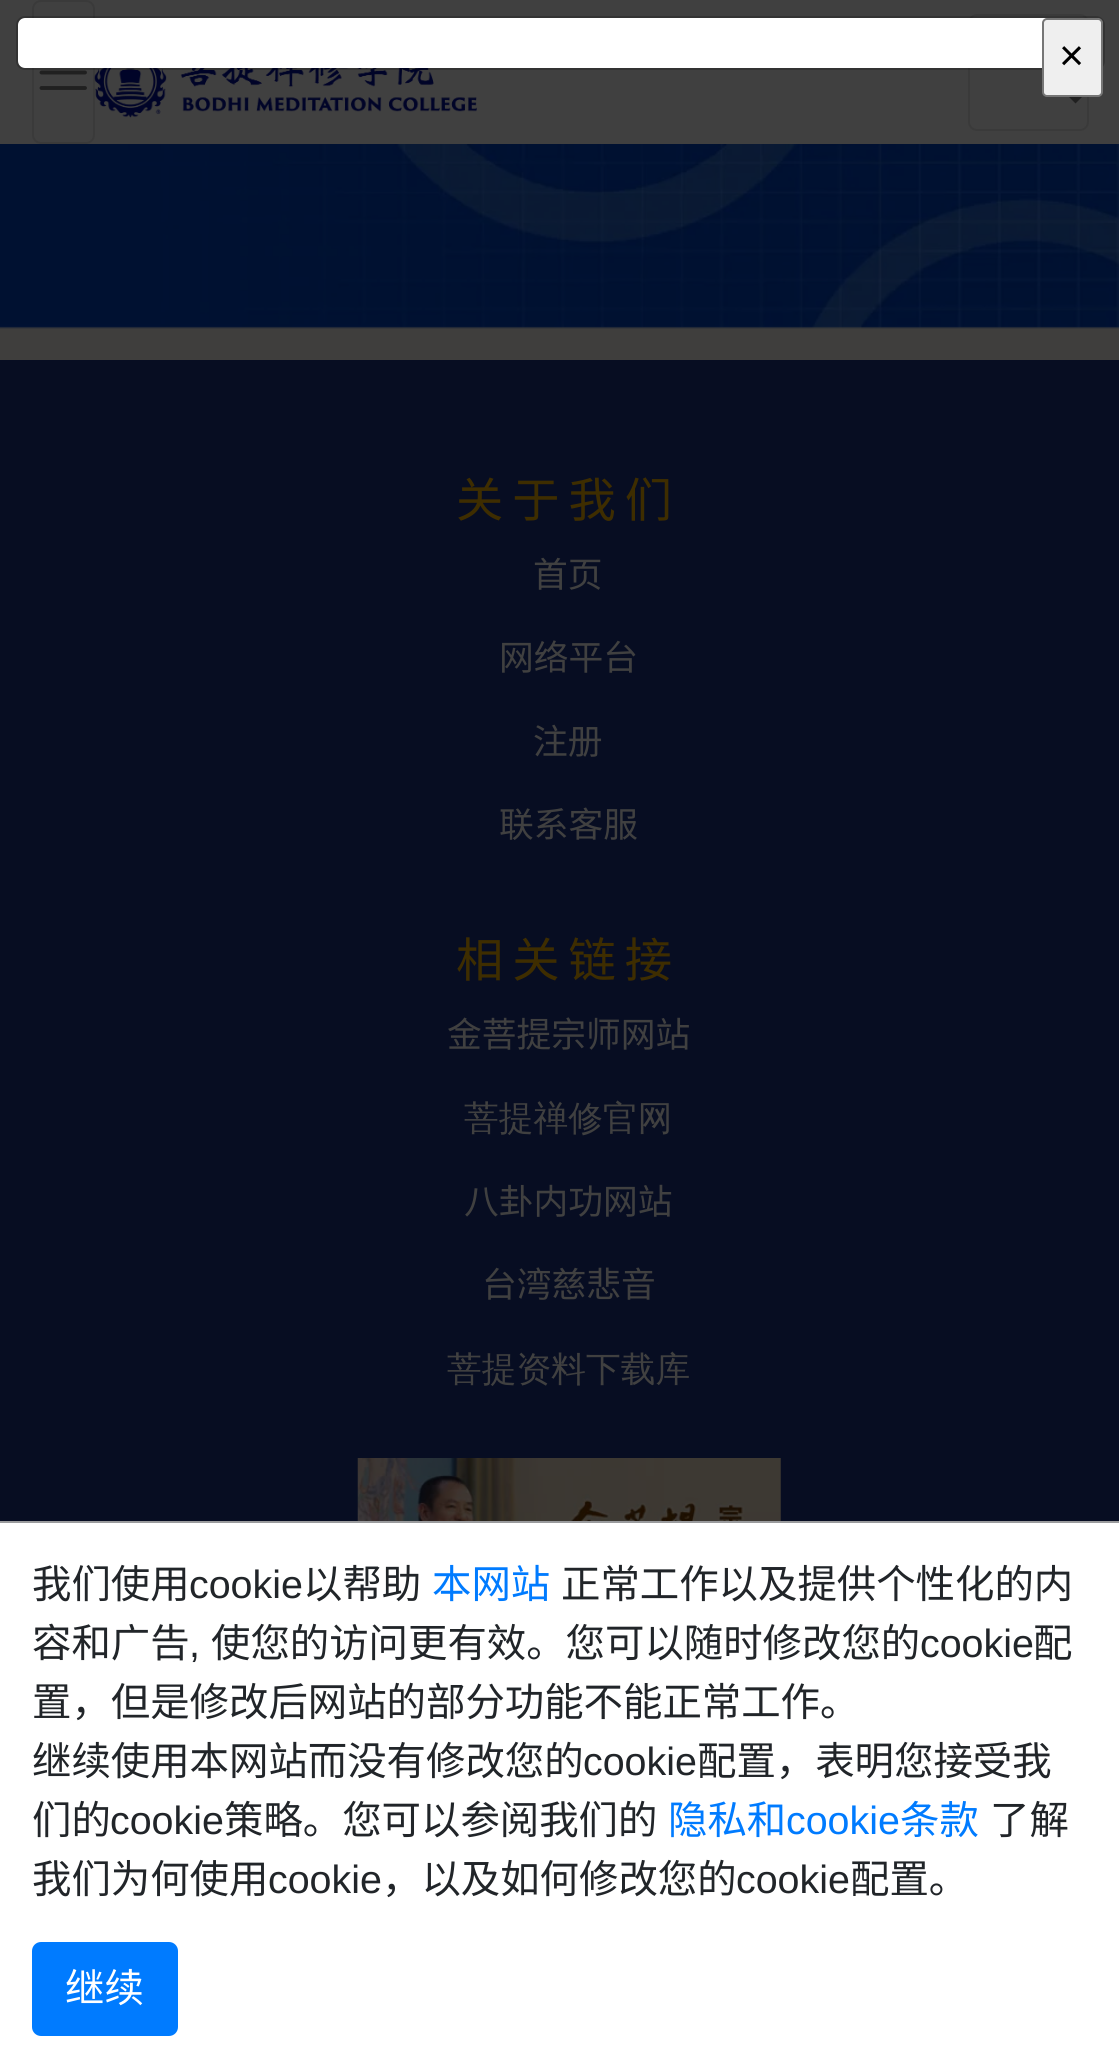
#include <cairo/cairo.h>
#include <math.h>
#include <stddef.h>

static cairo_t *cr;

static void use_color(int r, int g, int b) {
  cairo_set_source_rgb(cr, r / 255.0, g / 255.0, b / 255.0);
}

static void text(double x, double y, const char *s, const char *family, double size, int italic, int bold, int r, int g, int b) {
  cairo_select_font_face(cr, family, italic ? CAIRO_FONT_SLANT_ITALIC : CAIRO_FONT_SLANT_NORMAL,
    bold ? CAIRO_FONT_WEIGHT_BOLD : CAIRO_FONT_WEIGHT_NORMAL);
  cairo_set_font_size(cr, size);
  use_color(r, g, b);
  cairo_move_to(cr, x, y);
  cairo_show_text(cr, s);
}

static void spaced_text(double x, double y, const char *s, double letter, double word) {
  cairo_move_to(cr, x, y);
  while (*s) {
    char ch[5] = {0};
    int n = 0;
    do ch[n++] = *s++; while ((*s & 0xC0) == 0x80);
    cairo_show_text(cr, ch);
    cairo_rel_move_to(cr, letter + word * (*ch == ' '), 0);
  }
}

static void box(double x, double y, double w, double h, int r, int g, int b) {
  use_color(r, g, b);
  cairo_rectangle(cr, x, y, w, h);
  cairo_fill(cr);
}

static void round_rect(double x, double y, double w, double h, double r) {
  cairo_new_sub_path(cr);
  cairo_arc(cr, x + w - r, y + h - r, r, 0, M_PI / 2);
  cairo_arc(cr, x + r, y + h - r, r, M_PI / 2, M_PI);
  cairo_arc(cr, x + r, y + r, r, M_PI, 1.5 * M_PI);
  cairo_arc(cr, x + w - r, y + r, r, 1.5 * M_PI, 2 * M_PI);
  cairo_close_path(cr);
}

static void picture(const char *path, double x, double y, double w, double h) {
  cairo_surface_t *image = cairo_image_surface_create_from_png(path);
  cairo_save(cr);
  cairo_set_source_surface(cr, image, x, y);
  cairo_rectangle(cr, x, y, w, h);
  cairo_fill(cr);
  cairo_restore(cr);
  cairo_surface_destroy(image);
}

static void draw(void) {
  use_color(64, 64, 64);
  cairo_paint(cr);
  round_rect(33, 1, 61, 142, 8);
  use_color(58, 58, 58);
  cairo_stroke(cr);
  cairo_new_path(cr);
  cairo_move_to(cr, 41.5, 56.5);
  cairo_line_to(cr, 85, 56.5);
  cairo_move_to(cr, 41.5, 72.5);
  cairo_line_to(cr, 85, 72.5);
  cairo_move_to(cr, 41.5, 88);
  cairo_line_to(cr, 85, 88);
  use_color(32, 32, 32);
  cairo_set_line_width(cr, 3.9);
  cairo_set_line_cap(cr, CAIRO_LINE_CAP_ROUND);
  cairo_stroke(cr);
  round_rect(969, 15, 119, 115, 8);
  use_color(58, 58, 58);
  cairo_set_line_width(cr, 2);
  cairo_set_line_cap(cr, CAIRO_LINE_CAP_BUTT);
  cairo_stroke(cr);
  use_color(255, 255, 255);
  round_rect(18, 18, 1085, 50, 7);
  cairo_fill(cr);
  picture("img_01.png", 94, 68, 383, 50);
  round_rect(17, 17, 1087, 52, 8);
  cairo_set_source_rgba(cr, 0, 0, 0, 0.2);
  cairo_stroke(cr);
  use_color(32, 32, 32);
  cairo_new_path(cr);
  cairo_move_to(cr, 1064, 92);
  cairo_line_to(cr, 1087, 92);
  cairo_line_to(cr, 1075.5, 103.5);
  cairo_close_path(cr);
  cairo_fill(cr);
  use_color(239, 239, 239);
  round_rect(1043, 19, 59, 77, 4);
  cairo_fill_preserve(cr);
  use_color(118, 118, 118);
  cairo_stroke(cr);
  box(0, 326, 1119, 34, 63, 62, 61);
  picture("img_02.png", 0, 144, 1119, 185);
  box(0, 360, 1119, 1161, 7, 13, 34);
  picture("img_03.png", 357, 1458, 424, 63);
  box(0, 1523, 1119, 543, 255, 255, 255);
  box(0, 1521, 1119, 2, 154, 155, 157);
  use_color(0, 123, 255);
  round_rect(33, 1943, 144, 92, 8);
  cairo_fill_preserve(cr);
  cairo_stroke(cr);
  text(1059, 70, "×", "Liberation Sans", 43, 0, 0, 0, 0, 0);
  cairo_select_font_face(cr, "Noto Sans CJK SC", CAIRO_FONT_SLANT_NORMAL, CAIRO_FONT_WEIGHT_NORMAL);
  cairo_set_font_size(cr, 47.25);
  use_color(62, 45, 0);
  spaced_text(456, 517, "关于我们", 9, 0);
  text(533, 587, "首页", "Noto Sans CJK SC", 34.75, 0, 0, 64, 64, 64);
  text(499, 670, "网络平台", "Noto Sans CJK SC", 34.75, 0, 0, 64, 64, 64);
  text(533, 754, "注册", "Noto Sans CJK SC", 34.75, 0, 0, 64, 64, 64);
  text(499, 837, "联系客服", "Noto Sans CJK SC", 34.75, 0, 0, 64, 64, 64);
  cairo_set_font_size(cr, 47.25);
  use_color(62, 45, 0);
  spaced_text(456, 977, "相关链接", 9, 0);
  text(447, 1047, "金菩提宗师网站", "Noto Sans CJK SC", 34.75, 0, 0, 64, 64, 64);
  text(464, 1130, "菩提禅修官网", "WenQuanYi Zen Hei Medium", 34.75, 0, 0, 64, 64, 64);
  text(464, 1214, "八卦内功网站", "Noto Sans CJK SC", 34.75, 0, 0, 64, 64, 64);
  text(482, 1297, "台湾慈悲音", "Noto Sans CJK SC", 34.75, 0, 0, 64, 64, 64);
  text(447, 1381, "菩提资料下载库", "WenQuanYi Zen Hei Medium", 34.75, 0, 0, 64, 64, 64);
  text(32, 1598, "我们使用", "Noto Sans CJK SC", 39.4, 0, 0, 33, 37, 41);
  text(189, 1598, "cookie", "Liberation Sans", 39.4, 0, 0, 33, 37, 41);
  text(303, 1598, "以帮助", "Noto Sans CJK SC", 39.4, 0, 0, 33, 37, 41);
  text(432, 1598, "本网站", "Noto Sans CJK SC", 39.4, 0, 0, 0, 123, 255);
  text(561, 1598, "正常工作以及提供个性化的内", "Noto Sans CJK SC", 39.4, 0, 0, 33, 37, 41);
  text(32, 1657, "容和广告", "Noto Sans CJK SC", 39.4, 0, 0, 33, 37, 41);
  text(189, 1657, ",", "Liberation Sans", 39.4, 0, 0, 33, 37, 41);
  text(211, 1657, "使您的访问更有效。您可以随时修改您的", "Noto Sans CJK SC", 39.4, 0, 0, 33, 37, 41);
  text(920, 1657, "cookie", "Liberation Sans", 39.4, 0, 0, 33, 37, 41);
  text(1033, 1657, "配", "Noto Sans CJK SC", 39.4, 0, 0, 33, 37, 41);
  text(32, 1716, "置，但是修改后网站的部分功能不能正常工作。", "Noto Sans CJK SC", 39.4, 0, 0, 33, 37, 41);
  text(32, 1775, "继续使用本网站而没有修改您的", "Noto Sans CJK SC", 39.4, 0, 0, 33, 37, 41);
  text(583, 1775, "cookie", "Liberation Sans", 39.4, 0, 0, 33, 37, 41);
  text(697, 1775, "配置，表明您接受我", "Noto Sans CJK SC", 39.4, 0, 0, 33, 37, 41);
  text(32, 1834, "们的", "Noto Sans CJK SC", 39.4, 0, 0, 33, 37, 41);
  text(110, 1834, "cookie", "Liberation Sans", 39.4, 0, 0, 33, 37, 41);
  text(224, 1834, "策略。您可以参阅我们的", "Noto Sans CJK SC", 39.4, 0, 0, 33, 37, 41);
  text(668, 1834, "隐私和", "Noto Sans CJK SC", 39.4, 0, 0, 0, 123, 255);
  text(786, 1834, "cookie", "Liberation Sans", 39.4, 0, 0, 0, 123, 255);
  text(900, 1834, "条款", "Noto Sans CJK SC", 39.4, 0, 0, 0, 123, 255);
  text(990, 1834, "了解", "Noto Sans CJK SC", 39.4, 0, 0, 33, 37, 41);
  text(32, 1893, "我们为何使用", "Noto Sans CJK SC", 39.4, 0, 0, 33, 37, 41);
  text(268, 1893, "cookie", "Liberation Sans", 39.4, 0, 0, 33, 37, 41);
  text(382, 1893, "，以及如何修改您的", "Noto Sans CJK SC", 39.4, 0, 0, 33, 37, 41);
  text(736, 1893, "cookie", "Liberation Sans", 39.4, 0, 0, 33, 37, 41);
  text(850, 1893, "配置。", "Noto Sans CJK SC", 39.4, 0, 0, 33, 37, 41);
  text(65, 2002, "继续", "Noto Sans CJK SC", 39.4, 0, 0, 255, 255, 255);
}

int main(void) {
  cairo_surface_t *surface = cairo_image_surface_create(CAIRO_FORMAT_RGB24, 1119, 2066);
  cr = cairo_create(surface);
  cairo_font_options_t *options = cairo_font_options_create();
  cairo_font_options_set_hint_metrics(options, CAIRO_HINT_METRICS_OFF);
  cairo_font_options_set_hint_style(options, CAIRO_HINT_STYLE_NONE);
  cairo_set_font_options(cr, options);
  cairo_set_miter_limit(cr, 4);
  draw();
  cairo_surface_write_to_png(surface, "out.png");
  cairo_font_options_destroy(options);
  cairo_destroy(cr);
  cairo_surface_destroy(surface);
  return 0;
}
